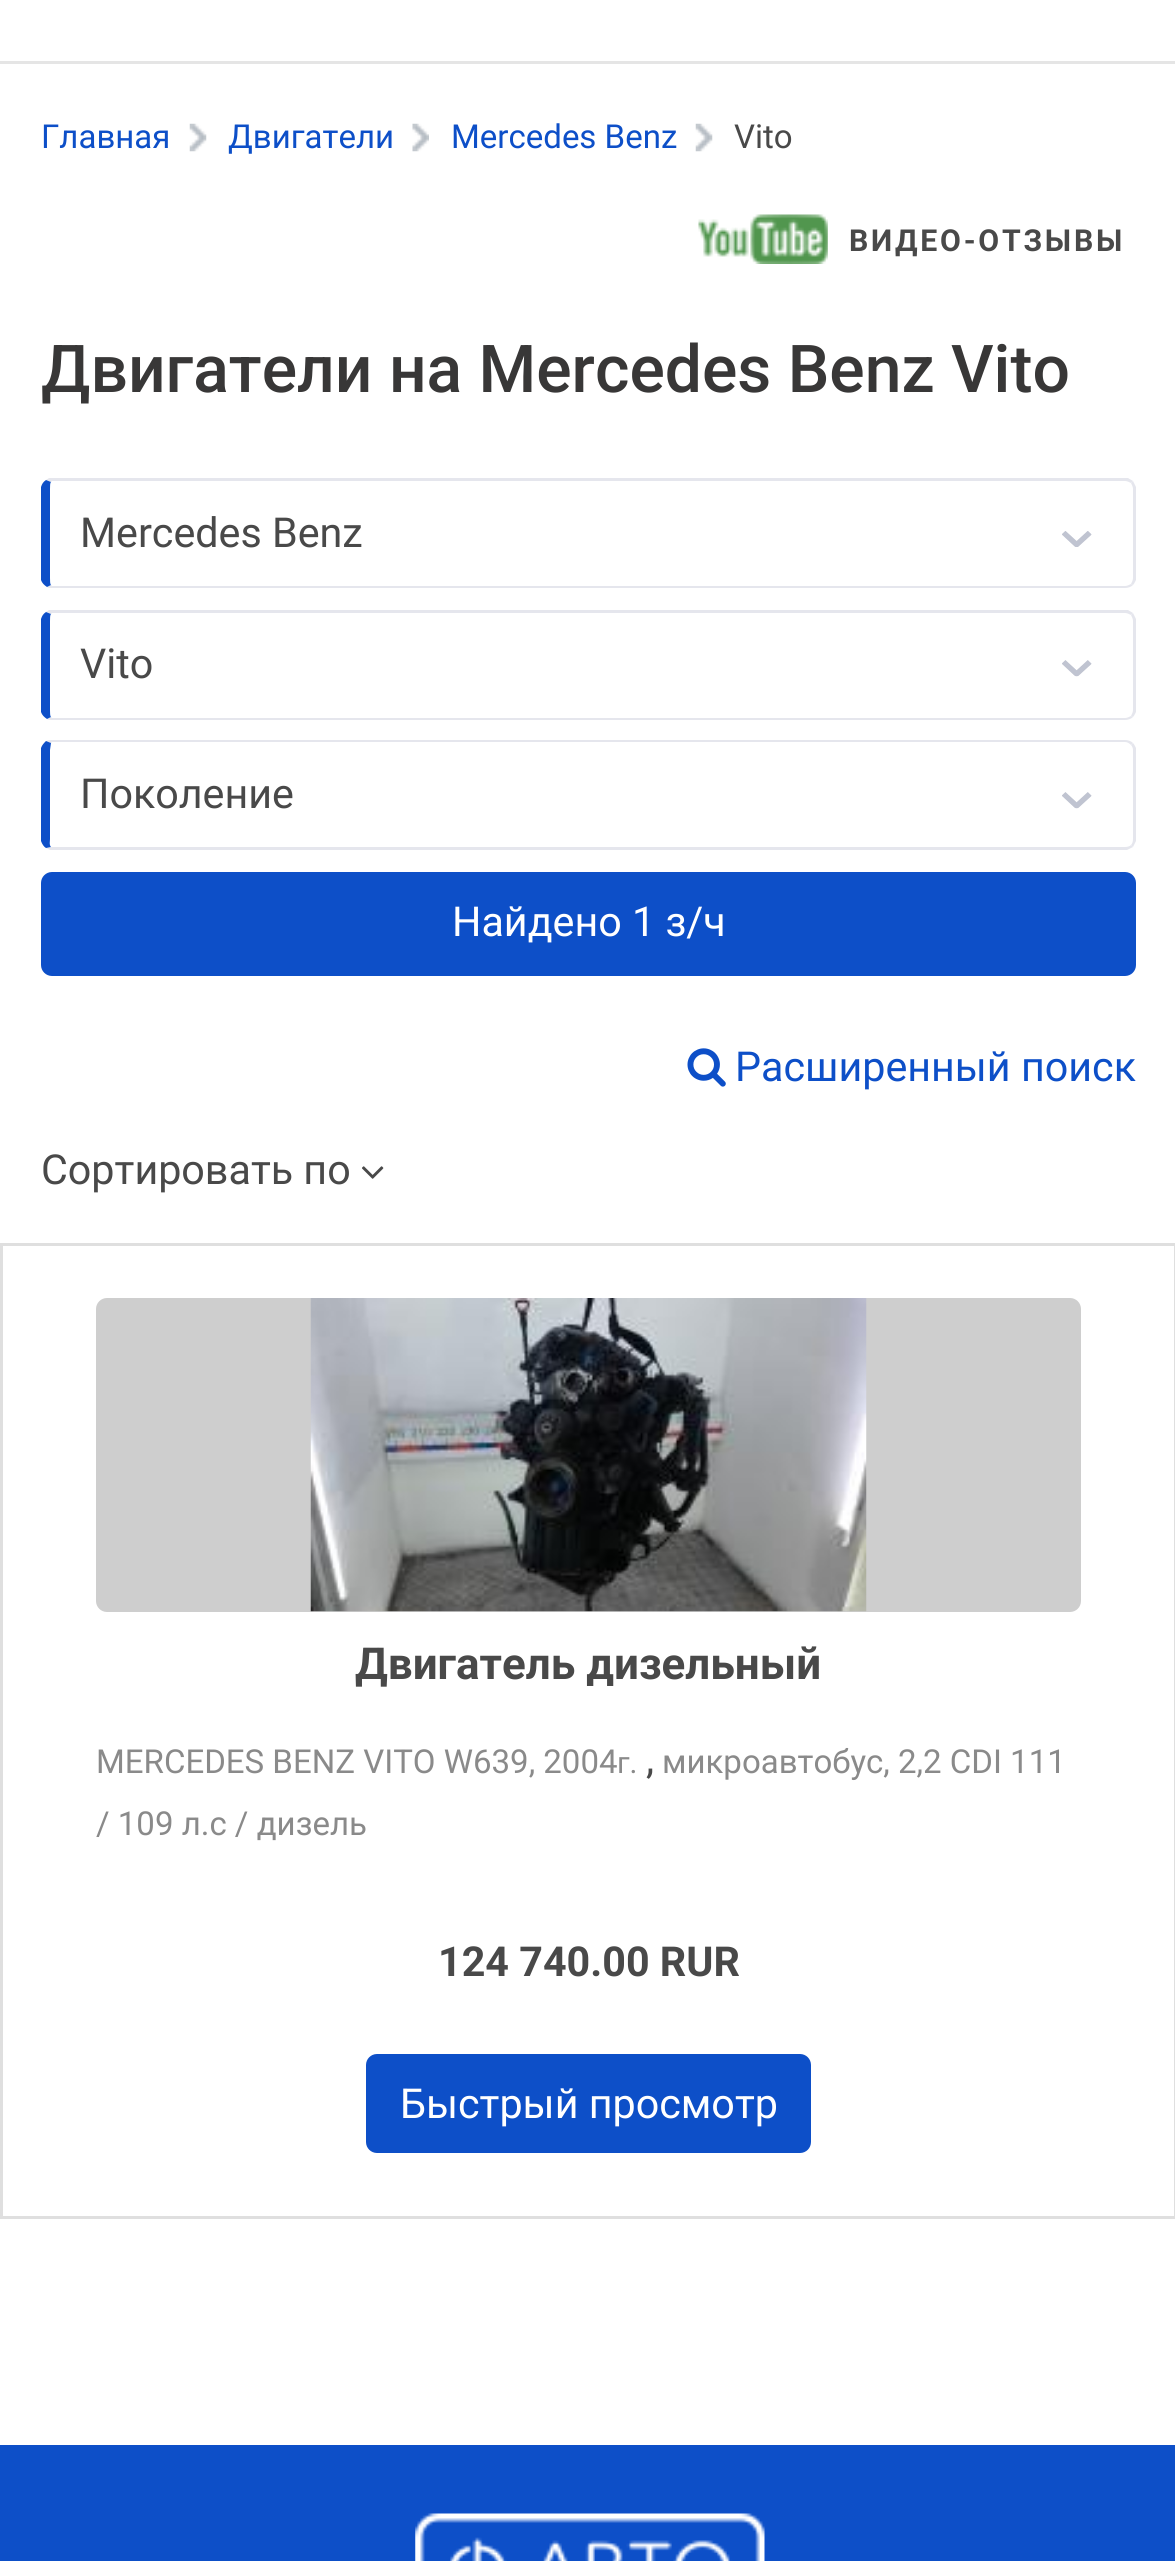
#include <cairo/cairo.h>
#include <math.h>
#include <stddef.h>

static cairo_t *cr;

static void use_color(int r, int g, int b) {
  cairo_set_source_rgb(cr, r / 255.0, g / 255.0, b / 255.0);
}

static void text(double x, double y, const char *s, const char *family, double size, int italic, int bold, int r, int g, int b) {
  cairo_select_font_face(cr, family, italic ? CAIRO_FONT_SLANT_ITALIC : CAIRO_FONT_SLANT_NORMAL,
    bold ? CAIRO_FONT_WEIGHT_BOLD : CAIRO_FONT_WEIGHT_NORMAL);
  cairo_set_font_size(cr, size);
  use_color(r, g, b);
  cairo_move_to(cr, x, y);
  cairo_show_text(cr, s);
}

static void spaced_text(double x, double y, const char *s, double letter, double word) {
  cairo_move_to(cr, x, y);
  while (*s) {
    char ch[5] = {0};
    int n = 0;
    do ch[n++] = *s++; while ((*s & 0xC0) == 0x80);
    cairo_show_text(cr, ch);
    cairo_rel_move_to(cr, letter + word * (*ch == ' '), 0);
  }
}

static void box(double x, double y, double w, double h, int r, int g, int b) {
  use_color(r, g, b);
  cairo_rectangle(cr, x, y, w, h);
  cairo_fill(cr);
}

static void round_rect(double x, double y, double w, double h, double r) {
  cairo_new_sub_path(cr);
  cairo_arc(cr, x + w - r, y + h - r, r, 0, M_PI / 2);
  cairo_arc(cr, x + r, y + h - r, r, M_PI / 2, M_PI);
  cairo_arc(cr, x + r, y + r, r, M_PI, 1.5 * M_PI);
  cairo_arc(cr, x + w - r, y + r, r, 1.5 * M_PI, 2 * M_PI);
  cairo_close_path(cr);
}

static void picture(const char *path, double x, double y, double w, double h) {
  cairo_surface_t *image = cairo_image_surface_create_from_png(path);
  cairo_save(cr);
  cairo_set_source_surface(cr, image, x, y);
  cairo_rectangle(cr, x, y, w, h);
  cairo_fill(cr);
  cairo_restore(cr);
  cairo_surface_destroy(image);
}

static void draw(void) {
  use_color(255, 255, 255);
  cairo_paint(cr);
  box(0, 61, 1175, 3, 229, 229, 229);
  picture("img_01.png", 189, 123, 18, 29);
  picture("img_02.png", 412, 123, 17, 29);
  picture("img_01.png", 695, 123, 18, 29);
  picture("img_03.png", 698, 214, 130, 50);
  use_color(229, 230, 237);
  cairo_new_path(cr);
  cairo_move_to(cr, 52, 481);
  cairo_line_to(cr, 51, 482);
  cairo_line_to(cr, 46, 480);
  cairo_line_to(cr, 49, 478);
  cairo_line_to(cr, 1128, 478);
  cairo_line_to(cr, 1133, 481);
  cairo_line_to(cr, 1131, 483);
  cairo_curve_to(cr, 1129, 482, 1127, 481, 1125, 481);
  cairo_close_path(cr);
  cairo_fill(cr);
  cairo_new_path(cr);
  cairo_move_to(cr, 1136, 580);
  cairo_curve_to(cr, 1135, 582, 1134, 584, 1133, 585);
  cairo_line_to(cr, 1131, 584);
  cairo_curve_to(cr, 1132, 582, 1133, 580, 1133, 578);
  cairo_line_to(cr, 1133, 489);
  cairo_curve_to(cr, 1133, 487, 1132, 485, 1131, 483);
  cairo_line_to(cr, 1133, 481);
  cairo_curve_to(cr, 1134, 483, 1135, 485, 1136, 487);
  cairo_close_path(cr);
  cairo_fill(cr);
  cairo_new_path(cr);
  cairo_move_to(cr, 1133, 585);
  cairo_curve_to(cr, 1131, 587, 1128, 588, 1125, 588);
  cairo_line_to(cr, 52, 588);
  cairo_curve_to(cr, 50, 588, 48, 588, 47, 587);
  cairo_line_to(cr, 51, 585);
  cairo_line_to(cr, 52, 586);
  cairo_line_to(cr, 1125, 586);
  cairo_curve_to(cr, 1127, 586, 1129, 585, 1131, 584);
  cairo_close_path(cr);
  cairo_fill(cr);
  use_color(13, 79, 200);
  cairo_new_path(cr);
  cairo_move_to(cr, 41, 487);
  cairo_curve_to(cr, 42, 484, 43, 482, 46, 480);
  cairo_line_to(cr, 51, 482);
  cairo_curve_to(cr, 50, 483, 50, 486, 50, 489);
  cairo_line_to(cr, 50, 578);
  cairo_curve_to(cr, 50, 581, 50, 584, 51, 585);
  cairo_line_to(cr, 47, 587);
  cairo_curve_to(cr, 44, 585, 42, 583, 41, 580);
  cairo_close_path(cr);
  cairo_fill(cr);
  picture("img_04.png", 1062, 531, 30, 16);
  use_color(229, 230, 237);
  cairo_new_path(cr);
  cairo_move_to(cr, 52, 613);
  cairo_line_to(cr, 51, 614);
  cairo_line_to(cr, 46, 612);
  cairo_line_to(cr, 49, 610);
  cairo_line_to(cr, 1128, 610);
  cairo_line_to(cr, 1133, 613);
  cairo_line_to(cr, 1131, 615);
  cairo_curve_to(cr, 1129, 614, 1127, 613, 1125, 613);
  cairo_close_path(cr);
  cairo_fill(cr);
  cairo_new_path(cr);
  cairo_move_to(cr, 1136, 712);
  cairo_curve_to(cr, 1135, 714, 1134, 716, 1133, 717);
  cairo_line_to(cr, 1131, 716);
  cairo_curve_to(cr, 1132, 714, 1133, 712, 1133, 710);
  cairo_line_to(cr, 1133, 621);
  cairo_curve_to(cr, 1133, 619, 1132, 617, 1131, 615);
  cairo_line_to(cr, 1133, 613);
  cairo_curve_to(cr, 1134, 615, 1135, 617, 1136, 619);
  cairo_close_path(cr);
  cairo_fill(cr);
  cairo_new_path(cr);
  cairo_move_to(cr, 1133, 717);
  cairo_curve_to(cr, 1131, 719, 1128, 720, 1125, 720);
  cairo_line_to(cr, 52, 720);
  cairo_curve_to(cr, 50, 720, 48, 720, 47, 719);
  cairo_line_to(cr, 51, 717);
  cairo_line_to(cr, 52, 718);
  cairo_line_to(cr, 1125, 718);
  cairo_curve_to(cr, 1127, 718, 1129, 717, 1131, 716);
  cairo_close_path(cr);
  cairo_fill(cr);
  use_color(13, 79, 200);
  cairo_new_path(cr);
  cairo_move_to(cr, 41, 619);
  cairo_curve_to(cr, 42, 616, 43, 614, 46, 612);
  cairo_line_to(cr, 51, 614);
  cairo_curve_to(cr, 50, 615, 50, 618, 50, 621);
  cairo_line_to(cr, 50, 710);
  cairo_curve_to(cr, 50, 713, 50, 716, 51, 717);
  cairo_line_to(cr, 47, 719);
  cairo_curve_to(cr, 44, 717, 42, 715, 41, 712);
  cairo_close_path(cr);
  cairo_fill(cr);
  picture("img_05.png", 1062, 660, 30, 17);
  use_color(229, 230, 237);
  cairo_new_path(cr);
  cairo_move_to(cr, 52, 740);
  cairo_curve_to(cr, 50, 740, 48, 740, 46, 741);
  cairo_line_to(cr, 51, 743);
  cairo_line_to(cr, 52, 742);
  cairo_line_to(cr, 1125, 742);
  cairo_curve_to(cr, 1127, 742, 1129, 743, 1131, 745);
  cairo_line_to(cr, 1133, 743);
  cairo_curve_to(cr, 1131, 741, 1128, 740, 1125, 740);
  cairo_close_path(cr);
  cairo_fill(cr);
  cairo_new_path(cr);
  cairo_move_to(cr, 1133, 743);
  cairo_curve_to(cr, 1134, 744, 1135, 746, 1136, 748);
  cairo_line_to(cr, 1136, 841);
  cairo_curve_to(cr, 1135, 843, 1134, 845, 1133, 847);
  cairo_line_to(cr, 1131, 845);
  cairo_curve_to(cr, 1132, 844, 1133, 842, 1133, 839);
  cairo_line_to(cr, 1133, 750);
  cairo_curve_to(cr, 1133, 748, 1132, 746, 1131, 745);
  cairo_close_path(cr);
  cairo_fill(cr);
  cairo_new_path(cr);
  cairo_move_to(cr, 50, 850);
  cairo_line_to(cr, 46, 848);
  cairo_line_to(cr, 51, 847);
  cairo_line_to(cr, 52, 847);
  cairo_line_to(cr, 1125, 847);
  cairo_curve_to(cr, 1128, 847, 1130, 846, 1131, 845);
  cairo_line_to(cr, 1133, 847);
  cairo_curve_to(cr, 1131, 848, 1129, 849, 1127, 850);
  cairo_close_path(cr);
  cairo_fill(cr);
  use_color(13, 79, 200);
  cairo_new_path(cr);
  cairo_move_to(cr, 41, 748);
  cairo_curve_to(cr, 42, 745, 44, 743, 46, 741);
  cairo_line_to(cr, 51, 743);
  cairo_line_to(cr, 50, 750);
  cairo_line_to(cr, 50, 839);
  cairo_curve_to(cr, 50, 841, 49, 845, 51, 847);
  cairo_line_to(cr, 46, 848);
  cairo_curve_to(cr, 44, 847, 42, 844, 41, 841);
  cairo_close_path(cr);
  cairo_fill(cr);
  picture("img_05.png", 1062, 792, 30, 17);
  round_rect(42.5, 873.5, 1092, 101, 9.5);
  cairo_fill_preserve(cr);
  cairo_set_line_width(cr, 3);
  cairo_stroke(cr);
  picture("img_06.png", 687, 1048, 39, 39);
  picture("img_07.png", 362, 1166, 22, 13);
  cairo_rectangle(cr, 1.5, 1244.5, 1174, 973);
  use_color(223, 223, 223);
  cairo_stroke(cr);
  use_color(206, 206, 206);
  round_rect(96, 1298, 985, 314, 11);
  cairo_fill(cr);
  picture("img_08.png", 310, 1298, 557, 314);
  use_color(13, 79, 200);
  round_rect(367.5, 2055.5, 442, 96, 9.5);
  cairo_fill_preserve(cr);
  cairo_stroke(cr);
  box(0, 2445, 1175, 116, 13, 79, 200);
  picture("img_09.png", 415, 2513, 350, 48);
  text(41, 148, "Главная", "Roboto", 33, 0, 0, 13, 79, 200);
  text(228, 148, "Двигатели", "Roboto", 33, 0, 0, 13, 79, 200);
  text(451, 148, "Mercedes Benz", "Roboto", 33, 0, 0, 13, 79, 200);
  text(734, 148, "Vito", "Roboto", 33, 0, 0, 73, 73, 73);
  cairo_select_font_face(cr, "Roboto", CAIRO_FONT_SLANT_NORMAL, CAIRO_FONT_WEIGHT_BOLD);
  cairo_set_font_size(cr, 30.25);
  spaced_text(849, 251, "ВИДЕО-ОТЗЫВЫ", 2.75, 0);
  text(41, 392, "Двигатели на Mercedes Benz Vito", "Roboto Medium", 66, 0, 0, 56, 55, 55);
  text(80, 547, "Mercedes Benz", "Roboto", 41.25, 0, 0, 73, 73, 73);
  text(80, 678, "Vito", "Roboto", 41.25, 0, 0, 73, 73, 73);
  text(80, 808, "Поколение", "Roboto", 41.25, 0, 0, 73, 73, 73);
  text(452, 936, "Найдено 1 з/ч", "Roboto", 41.25, 0, 0, 255, 255, 255);
  text(735, 1081, "Расширенный поиск", "Roboto", 41.25, 0, 0, 13, 79, 200);
  text(41, 1184, "Сортировать по", "Roboto", 41.25, 0, 0, 73, 73, 73);
  text(355, 1679, "Двигатель дизельный", "Roboto", 44, 0, 1, 73, 73, 73);
  text(96, 1773, "MERCEDES BENZ VITO W639, 2004", "Roboto", 33, 0, 0, 138, 138, 138);
  text(617, 1773, "г.", "Roboto", 30, 0, 0, 138, 138, 138);
  text(646, 1773, ",", "Roboto", 41.25, 0, 0, 73, 73, 73);
  text(662, 1773, "микроавтобус, 2,2 CDI 111", "Roboto", 33, 0, 0, 138, 138, 138);
  text(96, 1835, "/ 109 л.с / дизель", "Roboto", 33, 0, 0, 138, 138, 138);
  text(438, 1976, "124 740.00 RUR", "Roboto", 41.25, 0, 1, 73, 73, 73);
  text(400, 2118, "Быстрый просмотр", "Roboto", 41.25, 0, 0, 255, 255, 255);
}

int main(void) {
  cairo_surface_t *surface = cairo_image_surface_create(CAIRO_FORMAT_RGB24, 1175, 2561);
  cr = cairo_create(surface);
  cairo_font_options_t *options = cairo_font_options_create();
  cairo_font_options_set_hint_metrics(options, CAIRO_HINT_METRICS_OFF);
  cairo_font_options_set_hint_style(options, CAIRO_HINT_STYLE_NONE);
  cairo_set_font_options(cr, options);
  cairo_set_miter_limit(cr, 4);
  draw();
  cairo_surface_write_to_png(surface, "out.png");
  cairo_font_options_destroy(options);
  cairo_destroy(cr);
  cairo_surface_destroy(surface);
  return 0;
}
